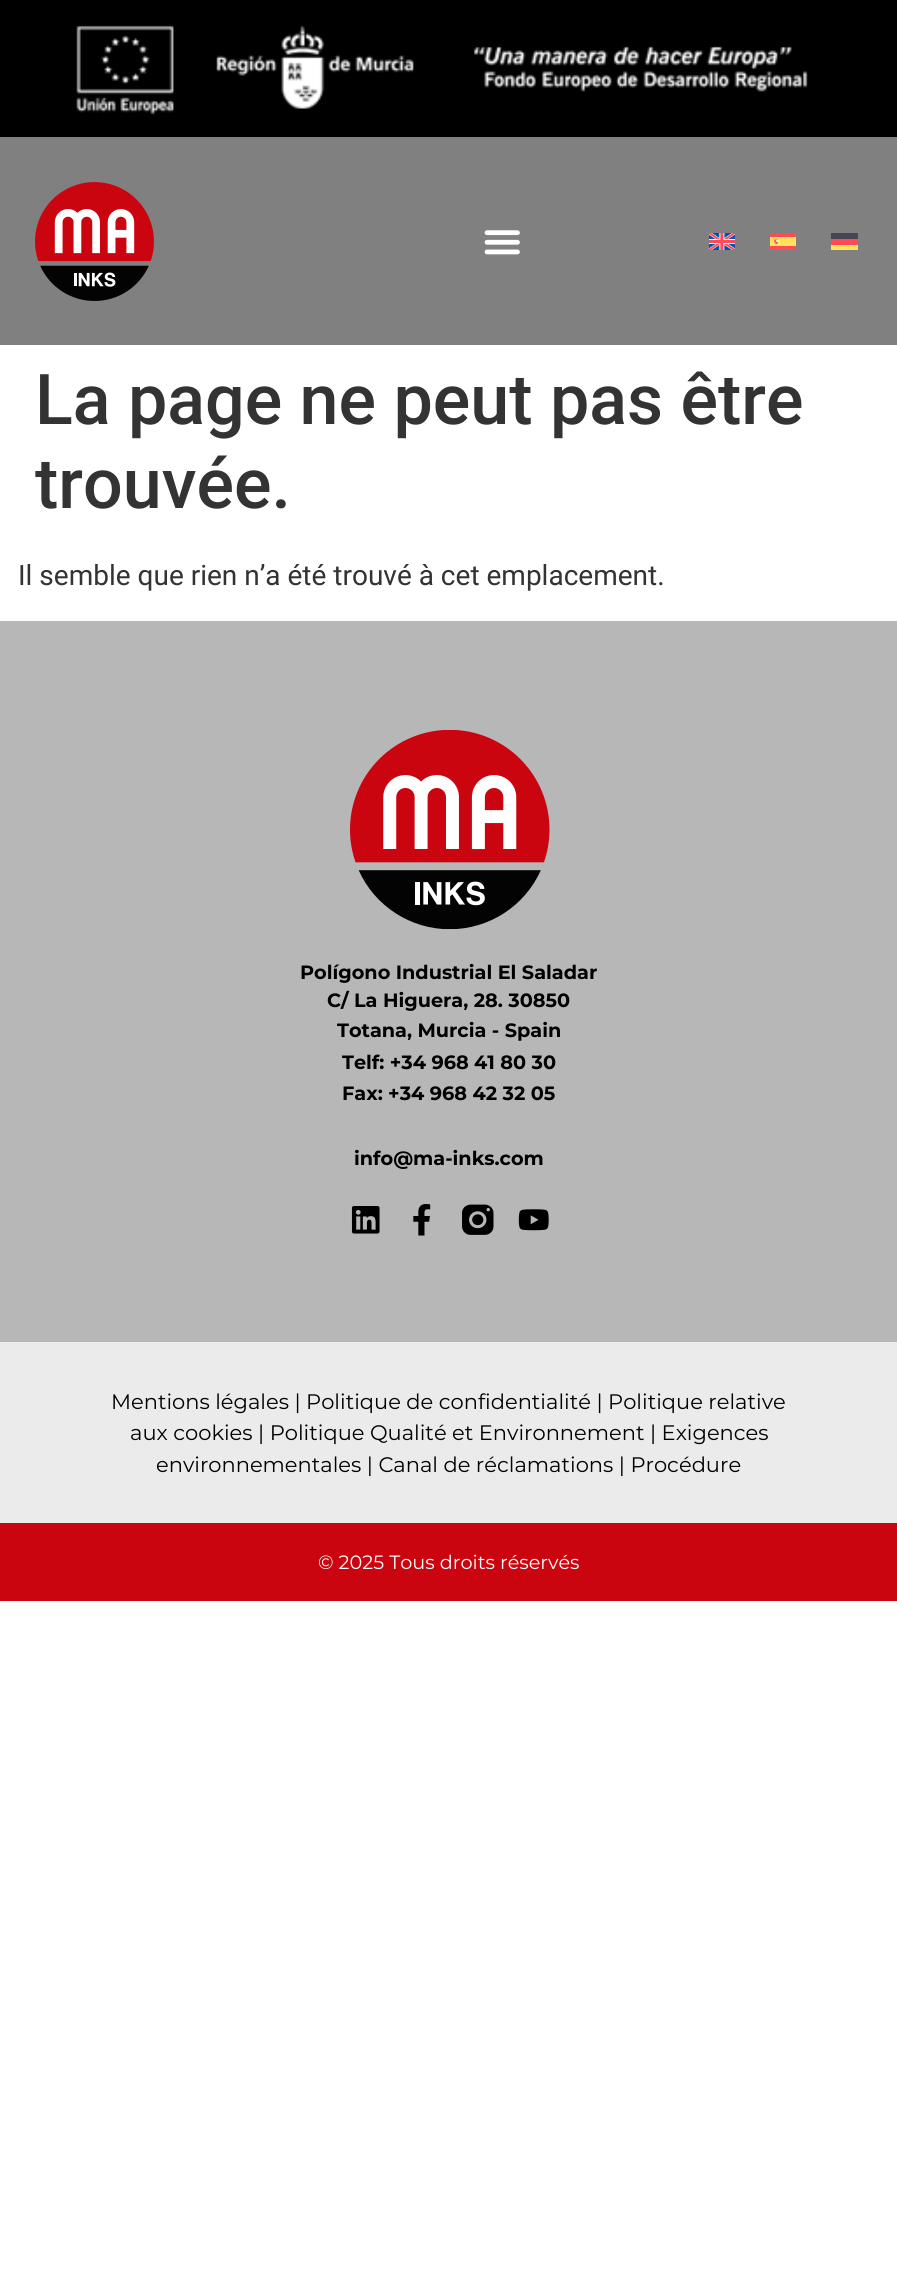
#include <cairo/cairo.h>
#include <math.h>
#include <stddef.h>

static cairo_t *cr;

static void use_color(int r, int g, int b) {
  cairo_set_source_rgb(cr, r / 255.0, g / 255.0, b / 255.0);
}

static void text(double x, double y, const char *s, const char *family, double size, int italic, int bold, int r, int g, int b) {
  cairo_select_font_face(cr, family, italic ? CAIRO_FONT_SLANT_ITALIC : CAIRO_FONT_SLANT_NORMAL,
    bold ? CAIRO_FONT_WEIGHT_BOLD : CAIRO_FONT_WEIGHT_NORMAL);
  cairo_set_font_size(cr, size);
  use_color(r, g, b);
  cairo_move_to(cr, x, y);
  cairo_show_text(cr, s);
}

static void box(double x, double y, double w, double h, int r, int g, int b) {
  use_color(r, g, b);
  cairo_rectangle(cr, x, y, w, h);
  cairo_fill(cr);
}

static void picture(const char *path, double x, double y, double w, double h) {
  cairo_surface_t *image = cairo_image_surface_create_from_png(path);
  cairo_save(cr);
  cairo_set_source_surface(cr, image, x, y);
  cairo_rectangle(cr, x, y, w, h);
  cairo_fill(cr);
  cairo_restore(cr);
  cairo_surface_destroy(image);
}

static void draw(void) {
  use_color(255, 255, 255);
  cairo_paint(cr);
  box(0, 0, 897, 137, 0, 0, 0);
  picture("img_01.png", 76, 25, 732, 90);
  box(0, 137, 897, 208, 128, 128, 128);
  picture("img_02.png", 35, 182, 119, 119);
  picture("img_03.png", 484, 230, 36, 25);
  picture("img_04.png", 709, 233, 26, 17);
  picture("img_05.png", 770, 233, 26, 17);
  box(831, 233, 27, 6, 70, 70, 85);
  box(831, 239, 27, 6, 255, 75, 85);
  box(831, 245, 27, 5, 255, 225, 90);
  box(0, 621, 897, 721, 184, 183, 183);
  picture("img_06.png", 350, 730, 200, 199);
  picture("img_07.png", 351, 1206, 29, 28);
  picture("img_08.png", 413, 1204, 18, 32);
  picture("img_09.png", 462, 1204, 32, 31);
  picture("img_10.png", 518, 1209, 31, 22);
  box(0, 1342, 897, 181, 235, 235, 235);
  box(0, 1523, 897, 78, 203, 5, 15);
  text(35, 424, "La page ne peut pas être", "Roboto Medium", 70, 0, 0, 51, 51, 51);
  text(35, 508, "trouvée.", "Roboto Medium", 70, 0, 0, 51, 51, 51);
  text(18, 585, "Il semble que rien n’a été trouvé à cet emplacement.", "Roboto", 28, 0, 0, 51, 51, 51);
  text(300, 979, "Polígono Industrial El Saladar", "Montserrat", 19.25, 0, 1, 0, 0, 0);
  text(327, 1007, "C/ La Higuera, 28. 30850", "Montserrat", 19.25, 0, 1, 0, 0, 0);
  text(337, 1037, "Totana, Murcia - Spain", "Montserrat", 19.25, 0, 1, 0, 0, 0);
  text(342, 1069, "Telf: +34 968 41 80 30", "Montserrat", 19.25, 0, 1, 0, 0, 0);
  text(342, 1100, "Fax: +34 968 42 32 05", "Montserrat", 19.25, 0, 1, 0, 0, 0);
  text(354, 1165, "info@ma-inks.com", "Montserrat", 19.25, 0, 1, 0, 0, 0);
  text(111, 1409, "Mentions légales | Politique de confidentialité | Politique relative", "Montserrat", 21, 0, 0, 0, 0, 0);
  text(130, 1440, "aux cookies | Politique Qualité et Environnement | Exigences", "Montserrat", 21, 0, 0, 0, 0, 0);
  text(156, 1472, "environnementales | Canal de réclamations | Procédure", "Montserrat", 21, 0, 0, 0, 0, 0);
  text(318, 1569, "© 2025 Tous droits réservés", "Montserrat", 19.25, 0, 0, 255, 255, 255);
}

int main(void) {
  cairo_surface_t *surface = cairo_image_surface_create(CAIRO_FORMAT_RGB24, 897, 2271);
  cr = cairo_create(surface);
  cairo_font_options_t *options = cairo_font_options_create();
  cairo_font_options_set_hint_metrics(options, CAIRO_HINT_METRICS_OFF);
  cairo_font_options_set_hint_style(options, CAIRO_HINT_STYLE_NONE);
  cairo_set_font_options(cr, options);
  cairo_set_miter_limit(cr, 4);
  draw();
  cairo_surface_write_to_png(surface, "out.png");
  cairo_font_options_destroy(options);
  cairo_destroy(cr);
  cairo_surface_destroy(surface);
  return 0;
}
